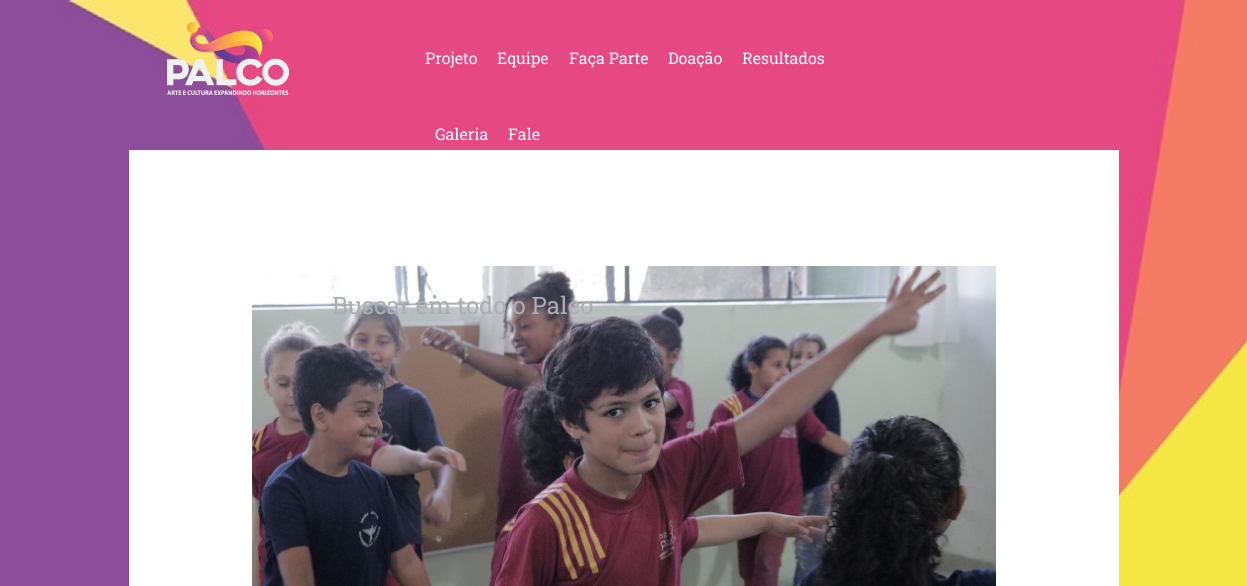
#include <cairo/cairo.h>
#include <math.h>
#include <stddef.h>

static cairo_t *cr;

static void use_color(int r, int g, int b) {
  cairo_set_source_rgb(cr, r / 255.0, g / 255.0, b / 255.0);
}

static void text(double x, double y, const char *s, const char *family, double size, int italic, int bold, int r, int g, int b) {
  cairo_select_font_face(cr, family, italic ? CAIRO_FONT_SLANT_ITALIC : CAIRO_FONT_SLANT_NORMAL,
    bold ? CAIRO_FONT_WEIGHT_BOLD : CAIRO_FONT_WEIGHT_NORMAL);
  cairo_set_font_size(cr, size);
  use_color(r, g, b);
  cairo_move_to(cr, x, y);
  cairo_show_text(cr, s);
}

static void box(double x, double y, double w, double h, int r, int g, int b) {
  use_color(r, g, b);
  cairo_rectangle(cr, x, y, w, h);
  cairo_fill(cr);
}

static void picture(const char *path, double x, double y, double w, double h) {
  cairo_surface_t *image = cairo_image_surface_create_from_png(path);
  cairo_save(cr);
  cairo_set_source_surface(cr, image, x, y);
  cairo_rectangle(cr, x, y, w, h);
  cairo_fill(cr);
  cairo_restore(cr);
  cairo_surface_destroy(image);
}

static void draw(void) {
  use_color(255, 255, 255);
  cairo_paint(cr);
  picture("img_01.png", 0, 0, 1247, 586);
  box(129, 150, 990, 436, 255, 255, 255);
  picture("img_02.png", 252, 266, 744, 320);
  picture("img_03.png", 167, 21, 122, 74);
  text(425, 64, "Projeto", "Roboto Slab", 16, 0, 0, 255, 255, 255);
  text(497, 64, "Equipe", "Roboto Slab", 16, 0, 0, 255, 255, 255);
  text(569, 64, "Faça Parte", "Roboto Slab", 16, 0, 0, 255, 255, 255);
  text(668, 64, "Doação", "Roboto Slab", 16, 0, 0, 255, 255, 255);
  text(742, 64, "Resultados", "Roboto Slab", 16, 0, 0, 255, 255, 255);
  text(435, 140, "Galeria", "Roboto Slab", 16, 0, 0, 255, 255, 255);
  text(508, 140, "Fale", "Roboto Slab", 16, 0, 0, 255, 255, 255);
  text(332, 314, "Buscar em todo o Palco", "Roboto Slab", 24, 0, 0, 171, 173, 179);
}

int main(void) {
  cairo_surface_t *surface = cairo_image_surface_create(CAIRO_FORMAT_RGB24, 1247, 586);
  cr = cairo_create(surface);
  cairo_font_options_t *options = cairo_font_options_create();
  cairo_font_options_set_hint_metrics(options, CAIRO_HINT_METRICS_OFF);
  cairo_font_options_set_hint_style(options, CAIRO_HINT_STYLE_NONE);
  cairo_set_font_options(cr, options);
  cairo_set_miter_limit(cr, 4);
  draw();
  cairo_surface_write_to_png(surface, "out.png");
  cairo_font_options_destroy(options);
  cairo_destroy(cr);
  cairo_surface_destroy(surface);
  return 0;
}
